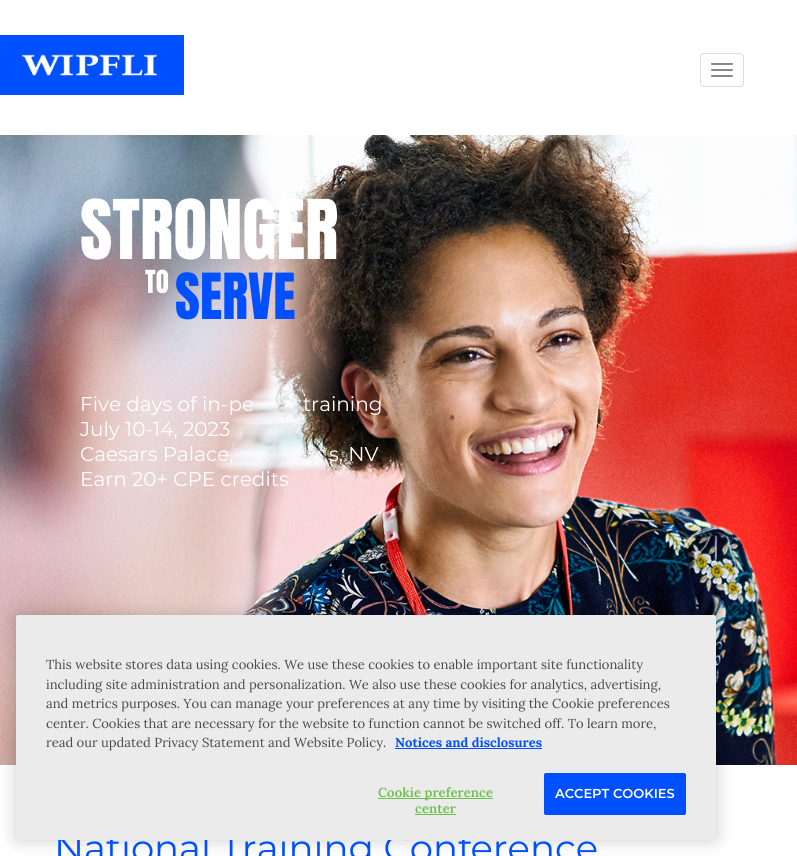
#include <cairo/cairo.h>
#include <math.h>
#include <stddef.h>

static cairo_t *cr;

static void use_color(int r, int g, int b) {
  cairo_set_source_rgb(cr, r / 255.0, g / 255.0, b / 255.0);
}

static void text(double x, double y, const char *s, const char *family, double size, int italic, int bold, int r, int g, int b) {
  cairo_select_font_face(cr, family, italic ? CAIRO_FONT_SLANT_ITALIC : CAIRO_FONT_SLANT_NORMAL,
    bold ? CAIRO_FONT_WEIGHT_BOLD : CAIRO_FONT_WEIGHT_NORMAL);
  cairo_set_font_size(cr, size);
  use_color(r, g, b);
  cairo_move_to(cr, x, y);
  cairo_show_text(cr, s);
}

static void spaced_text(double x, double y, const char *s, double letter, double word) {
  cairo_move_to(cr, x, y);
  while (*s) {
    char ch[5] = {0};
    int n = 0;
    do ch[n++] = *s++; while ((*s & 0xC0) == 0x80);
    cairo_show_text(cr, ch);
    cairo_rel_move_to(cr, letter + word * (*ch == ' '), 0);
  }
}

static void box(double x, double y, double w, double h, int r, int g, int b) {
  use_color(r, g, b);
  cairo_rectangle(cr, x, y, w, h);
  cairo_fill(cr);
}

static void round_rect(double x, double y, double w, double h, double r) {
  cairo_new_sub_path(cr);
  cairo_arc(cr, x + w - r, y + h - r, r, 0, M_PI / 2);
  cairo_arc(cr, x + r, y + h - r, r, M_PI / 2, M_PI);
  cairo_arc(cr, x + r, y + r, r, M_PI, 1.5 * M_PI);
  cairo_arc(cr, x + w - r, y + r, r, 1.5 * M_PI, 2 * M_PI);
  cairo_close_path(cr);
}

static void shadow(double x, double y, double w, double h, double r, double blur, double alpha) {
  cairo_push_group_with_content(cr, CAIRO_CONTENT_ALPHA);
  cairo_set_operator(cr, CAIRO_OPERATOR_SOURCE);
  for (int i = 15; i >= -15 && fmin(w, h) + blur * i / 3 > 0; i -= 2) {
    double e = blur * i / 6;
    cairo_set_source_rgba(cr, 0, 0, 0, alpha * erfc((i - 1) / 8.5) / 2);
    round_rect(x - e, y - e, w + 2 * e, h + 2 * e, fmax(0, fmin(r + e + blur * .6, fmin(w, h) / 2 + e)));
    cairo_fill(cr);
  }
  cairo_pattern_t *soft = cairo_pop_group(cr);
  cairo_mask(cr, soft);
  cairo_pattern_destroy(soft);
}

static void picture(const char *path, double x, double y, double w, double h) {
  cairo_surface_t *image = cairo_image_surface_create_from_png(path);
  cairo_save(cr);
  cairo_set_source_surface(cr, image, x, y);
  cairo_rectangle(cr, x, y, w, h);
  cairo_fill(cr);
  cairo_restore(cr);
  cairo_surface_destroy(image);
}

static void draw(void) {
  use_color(255, 255, 255);
  cairo_paint(cr);
  picture("img_01.png", 0, 35, 184, 60);
  round_rect(700.5, 53.5, 43, 33, 3.5);
  use_color(221, 221, 221);
  cairo_set_line_width(cr, 1);
  cairo_stroke(cr);
  use_color(136, 136, 136);
  round_rect(711, 63, 22, 2, 1);
  cairo_fill(cr);
  round_rect(711, 69, 22, 2, 1);
  cairo_fill(cr);
  round_rect(711, 75, 22, 2, 1);
  cairo_fill(cr);
  picture("img_02.png", 0, 135, 797, 630);
  use_color(0, 0, 0);
  shadow(16, 615, 700, 225, 2.5, 9, 0.2);
  text(80, 259, "STRONGER", "Anton", 70, 0, 0, 255, 255, 255);
  text(145, 293, "TO", "Anton", 27, 0, 0, 255, 255, 255);
  text(175, 319, "SERVE", "Anton", 54, 0, 0, 0, 80, 255);
  text(80, 411, "Five days of in-pe", "Montserrat", 20, 0, 0, 255, 255, 255);
  text(303, 411, "training", "Montserrat", 20, 0, 0, 255, 255, 255);
  text(80, 436, "July 10-14, 2023", "Montserrat", 20, 0, 0, 255, 255, 255);
  text(80, 461, "Caesars Palace,", "Montserrat", 20, 0, 0, 255, 255, 255);
  text(329, 461, "s, NV", "Montserrat", 20, 0, 0, 255, 255, 255);
  text(80, 486, "Earn 20+ CPE credits", "Montserrat", 20, 0, 0, 255, 255, 255);
  text(54, 861, "National Training Conference", "Montserrat", 37, 0, 0, 0, 80, 255);
  use_color(235, 235, 235);
  round_rect(16, 615, 700, 225, 2.5);
  cairo_fill(cr);
  cairo_select_font_face(cr, "Lora SemiBold", CAIRO_FONT_SLANT_NORMAL, CAIRO_FONT_WEIGHT_NORMAL);
  cairo_set_font_size(cr, 13);
  use_color(108, 192, 74);
  spaced_text(415, 813, "center", 0.1, 0);
  box(415, 814, 41, 1, 108, 192, 74);
  box(378, 798, 115, 1, 108, 192, 74);
  spaced_text(378, 797, "Cookie preference", 0.1, 0);
  use_color(0, 80, 255);
  round_rect(544.5, 773.5, 141, 41, 1.5);
  cairo_fill_preserve(cr);
  cairo_stroke(cr);
  text(555, 798, "ACCEPT COOKIES", "Montserrat SemiBold", 13, 0, 0, 255, 255, 255);
  text(395, 747, "Notices and disclosures", "Lora", 13, 0, 1, 0, 80, 255);
  box(395, 748, 147, 1, 0, 80, 255);
  text(46, 747, "read our updated Privacy Statement and Website Policy.", "Lora", 13, 0, 0, 72, 74, 78);
  text(46, 728, "center. Cookies that are necessary for the website to function cannot be switched off. To learn more,", "Lora", 13, 0, 0, 72, 74, 78);
  text(46, 708, "and metrics purposes. You can manage your preferences at any time by visiting the Cookie preferences", "Lora", 13, 0, 0, 72, 74, 78);
  text(46, 689, "including site administration and personalization. We also use these cookies for analytics, advertising,", "Lora", 13, 0, 0, 72, 74, 78);
  text(46, 669, "This website stores data using cookies. We use these cookies to enable important site functionality", "Lora", 13, 0, 0, 72, 74, 78);
}

int main(void) {
  cairo_surface_t *surface = cairo_image_surface_create(CAIRO_FORMAT_RGB24, 797, 856);
  cr = cairo_create(surface);
  cairo_font_options_t *options = cairo_font_options_create();
  cairo_font_options_set_hint_metrics(options, CAIRO_HINT_METRICS_OFF);
  cairo_font_options_set_hint_style(options, CAIRO_HINT_STYLE_NONE);
  cairo_set_font_options(cr, options);
  cairo_set_miter_limit(cr, 4);
  draw();
  cairo_surface_write_to_png(surface, "out.png");
  cairo_font_options_destroy(options);
  cairo_destroy(cr);
  cairo_surface_destroy(surface);
  return 0;
}
